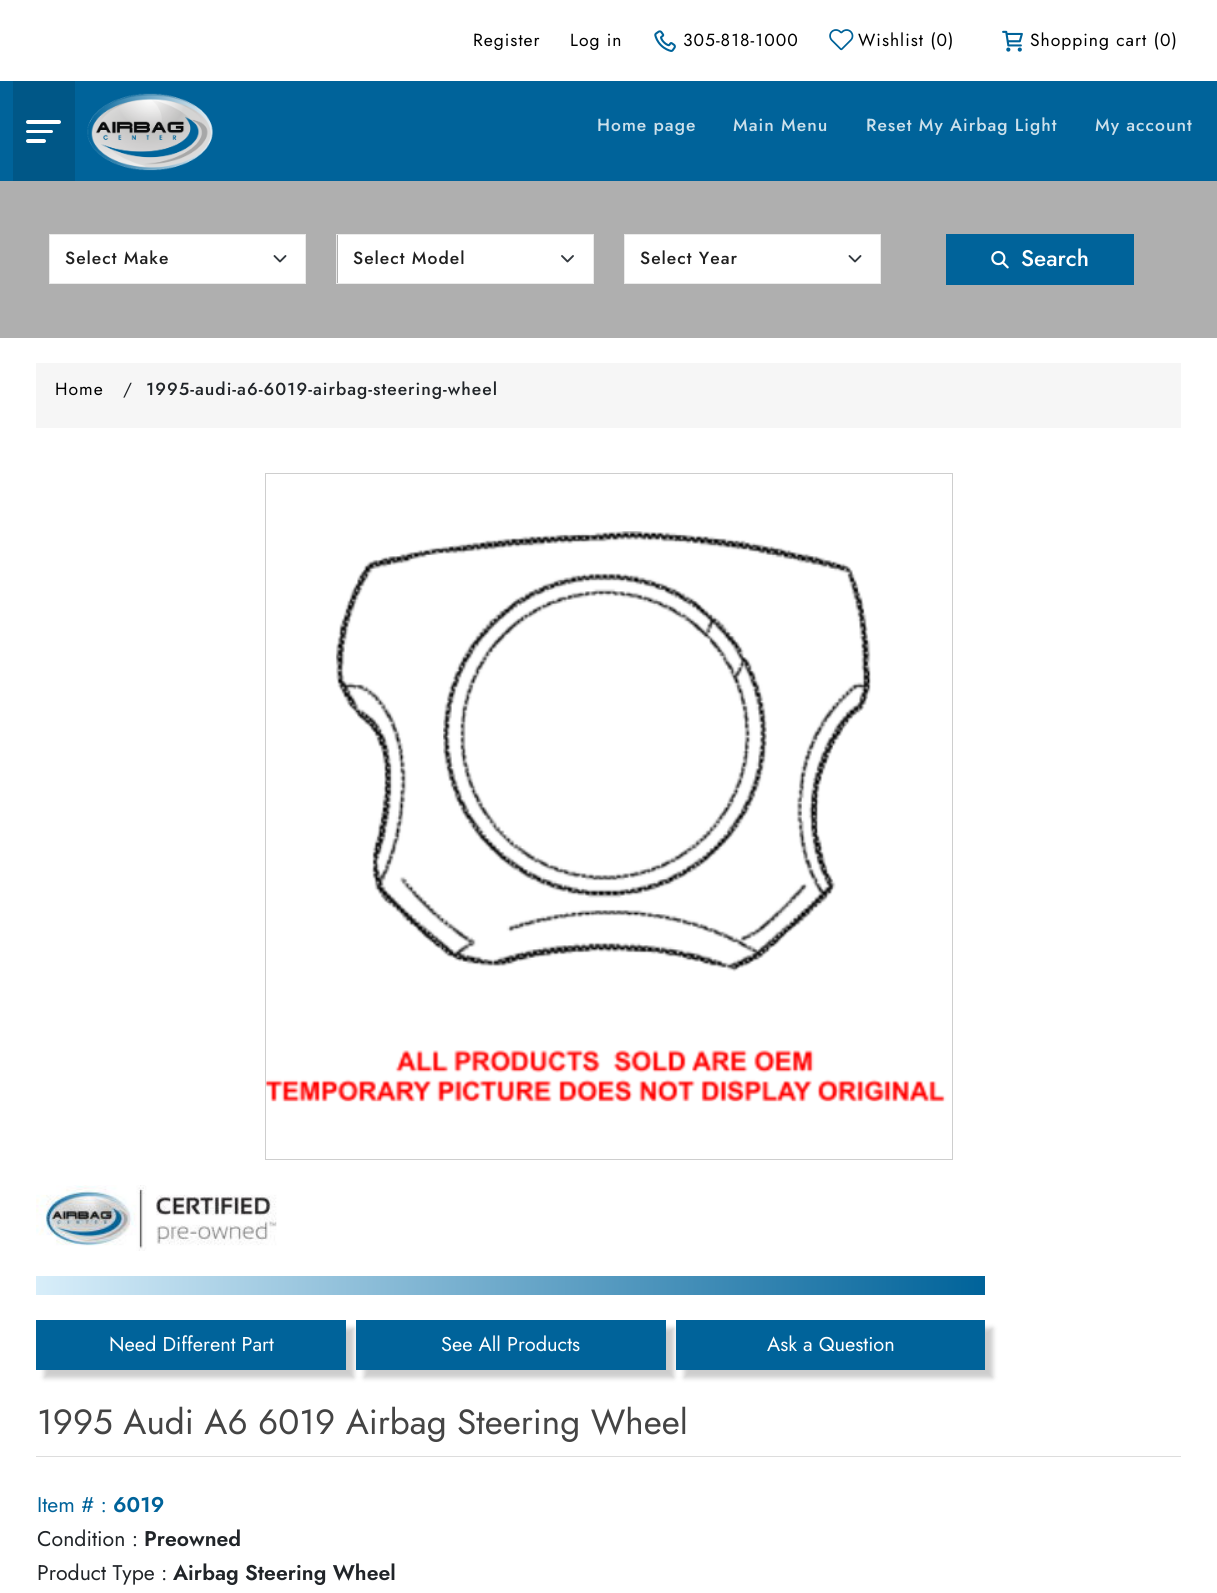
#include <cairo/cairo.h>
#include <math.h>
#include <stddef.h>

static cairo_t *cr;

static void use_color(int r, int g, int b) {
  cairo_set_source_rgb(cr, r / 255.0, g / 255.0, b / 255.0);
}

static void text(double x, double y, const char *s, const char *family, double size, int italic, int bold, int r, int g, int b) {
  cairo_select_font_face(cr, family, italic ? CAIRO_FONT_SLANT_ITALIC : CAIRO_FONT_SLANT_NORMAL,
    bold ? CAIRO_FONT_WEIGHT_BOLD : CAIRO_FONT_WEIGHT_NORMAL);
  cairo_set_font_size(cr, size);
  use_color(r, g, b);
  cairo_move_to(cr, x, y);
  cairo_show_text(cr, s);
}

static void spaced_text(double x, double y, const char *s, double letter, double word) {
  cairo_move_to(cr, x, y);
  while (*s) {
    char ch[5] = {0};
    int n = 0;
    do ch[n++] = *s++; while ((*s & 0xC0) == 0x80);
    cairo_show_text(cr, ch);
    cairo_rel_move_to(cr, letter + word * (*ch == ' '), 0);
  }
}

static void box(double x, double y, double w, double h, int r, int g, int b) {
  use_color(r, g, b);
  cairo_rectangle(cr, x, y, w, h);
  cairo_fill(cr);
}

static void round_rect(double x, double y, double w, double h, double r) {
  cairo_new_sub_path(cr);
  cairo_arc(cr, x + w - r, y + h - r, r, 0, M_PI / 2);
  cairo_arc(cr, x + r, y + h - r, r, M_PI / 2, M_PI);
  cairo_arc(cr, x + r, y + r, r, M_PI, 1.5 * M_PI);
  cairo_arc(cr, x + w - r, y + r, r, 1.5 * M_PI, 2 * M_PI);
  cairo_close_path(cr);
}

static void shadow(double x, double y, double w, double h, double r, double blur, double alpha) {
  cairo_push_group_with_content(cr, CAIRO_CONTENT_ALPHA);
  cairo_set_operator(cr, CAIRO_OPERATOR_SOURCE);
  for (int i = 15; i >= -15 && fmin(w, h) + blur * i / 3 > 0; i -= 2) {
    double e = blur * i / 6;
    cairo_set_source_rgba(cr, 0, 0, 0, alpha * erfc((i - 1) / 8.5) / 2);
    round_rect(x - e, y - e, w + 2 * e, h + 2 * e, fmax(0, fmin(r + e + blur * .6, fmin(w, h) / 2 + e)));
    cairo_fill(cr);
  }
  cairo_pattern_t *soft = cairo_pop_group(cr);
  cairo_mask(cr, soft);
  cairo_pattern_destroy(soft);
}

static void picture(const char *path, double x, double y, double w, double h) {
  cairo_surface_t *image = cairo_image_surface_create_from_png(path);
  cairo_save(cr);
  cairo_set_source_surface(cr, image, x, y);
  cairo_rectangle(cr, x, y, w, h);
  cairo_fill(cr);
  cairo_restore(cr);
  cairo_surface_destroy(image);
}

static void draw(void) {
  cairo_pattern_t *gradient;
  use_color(255, 255, 255);
  cairo_paint(cr);
  picture("img_01.png", 654, 30, 22, 22);
  picture("img_02.png", 829, 29, 25, 22);
  picture("img_03.png", 1002, 30, 21, 22);
  box(0, 81, 1217, 100, 0, 99, 154);
  box(13, 81, 62, 100, 0, 87, 135);
  use_color(255, 255, 255);
  round_rect(26, 120, 35, 4, 2);
  cairo_fill(cr);
  round_rect(26, 130, 27, 3, 1.5);
  cairo_fill(cr);
  round_rect(26, 139, 20, 4, 2);
  cairo_fill(cr);
  picture("img_04.png", 87, 93, 126, 78);
  box(0, 181, 1217, 157, 175, 175, 175);
  box(50, 235, 255, 48, 255, 255, 255);
  cairo_new_path(cr);
  cairo_move_to(cr, 274.5, 256);
  cairo_line_to(cr, 280, 261.5);
  cairo_line_to(cr, 285.5, 256);
  use_color(52, 58, 64);
  cairo_set_line_width(cr, 1.9);
  cairo_set_line_cap(cr, CAIRO_LINE_CAP_ROUND);
  cairo_set_line_join(cr, CAIRO_LINE_JOIN_ROUND);
  cairo_stroke(cr);
  cairo_rectangle(cr, 49.5, 234.5, 256, 49);
  use_color(234, 234, 234);
  cairo_set_line_width(cr, 1);
  cairo_set_line_cap(cr, CAIRO_LINE_CAP_BUTT);
  cairo_set_line_join(cr, CAIRO_LINE_JOIN_MITER);
  cairo_stroke(cr);
  box(338, 235, 255, 48, 255, 255, 255);
  cairo_new_path(cr);
  cairo_move_to(cr, 562, 256);
  cairo_line_to(cr, 567.5, 261.5);
  cairo_line_to(cr, 573, 256);
  use_color(52, 58, 64);
  cairo_set_line_width(cr, 1.9);
  cairo_set_line_cap(cr, CAIRO_LINE_CAP_ROUND);
  cairo_set_line_join(cr, CAIRO_LINE_JOIN_ROUND);
  cairo_stroke(cr);
  cairo_rectangle(cr, 336.5, 234.5, 257, 49);
  use_color(234, 234, 234);
  cairo_set_line_width(cr, 1);
  cairo_set_line_cap(cr, CAIRO_LINE_CAP_BUTT);
  cairo_set_line_join(cr, CAIRO_LINE_JOIN_MITER);
  cairo_stroke(cr);
  box(625, 235, 255, 48, 255, 255, 255);
  cairo_new_path(cr);
  cairo_move_to(cr, 849.5, 256);
  cairo_line_to(cr, 855, 261.5);
  cairo_line_to(cr, 860.5, 256);
  use_color(52, 58, 64);
  cairo_set_line_width(cr, 1.9);
  cairo_set_line_cap(cr, CAIRO_LINE_CAP_ROUND);
  cairo_set_line_join(cr, CAIRO_LINE_JOIN_ROUND);
  cairo_stroke(cr);
  cairo_rectangle(cr, 624.5, 234.5, 256, 49);
  use_color(234, 234, 234);
  cairo_set_line_width(cr, 1);
  cairo_set_line_cap(cr, CAIRO_LINE_CAP_BUTT);
  cairo_set_line_join(cr, CAIRO_LINE_JOIN_MITER);
  cairo_stroke(cr);
  box(946, 234, 188, 51, 0, 99, 154);
  picture("img_05.png", 991, 250, 18, 19);
  box(36, 363, 1145, 65, 246, 246, 246);
  cairo_rectangle(cr, 265.5, 473.5, 687, 686);
  use_color(206, 206, 206);
  cairo_stroke(cr);
  picture("img_06.png", 266, 531, 680, 571);
  picture("img_07.png", 36, 1185, 241, 66);
  gradient = cairo_pattern_create_linear(36, 1286, 985, 1286);
  cairo_pattern_add_color_stop_rgba(gradient, 0, 0.847, 0.933, 0.98, 1);
  cairo_pattern_add_color_stop_rgba(gradient, 1, 0, 0.388, 0.604, 1);
  cairo_set_source(cr, gradient);
  cairo_pattern_destroy(gradient);
  cairo_rectangle(cr, 36, 1276, 949, 19);
  cairo_fill(cr);
  use_color(0, 0, 0);
  shadow(44, 1328, 310, 50, 0, 2.5, 0.2);
  box(36, 1320, 310, 50, 0, 99, 154);
  use_color(0, 0, 0);
  shadow(364, 1328, 310, 50, 0, 2.5, 0.2);
  box(356, 1320, 310, 50, 0, 99, 154);
  use_color(0, 0, 0);
  shadow(684, 1328, 309, 50, 0, 2.5, 0.2);
  box(676, 1320, 309, 50, 0, 99, 154);
  box(36, 1456, 1145, 1, 221, 221, 221);
  cairo_select_font_face(cr, "Jost", CAIRO_FONT_SLANT_NORMAL, CAIRO_FONT_WEIGHT_NORMAL);
  cairo_set_font_size(cr, 17.5);
  use_color(0, 0, 0);
  spaced_text(473, 46, "Register", 1, 0);
  spaced_text(570, 46, "Log in", 1, 0);
  spaced_text(683, 46, "305-818-1000", 1, 0);
  spaced_text(858, 46, "Wishlist (0)", 1, 0);
  spaced_text(1030, 46, "Shopping cart (0)", 1, 0);
  cairo_select_font_face(cr, "Jost Medium", CAIRO_FONT_SLANT_NORMAL, CAIRO_FONT_WEIGHT_NORMAL);
  use_color(204, 224, 235);
  spaced_text(597, 131, "Home page", 1, 0);
  spaced_text(733, 131, "Main Menu", 1, 0);
  spaced_text(866, 131, "Reset My Airbag Light", 1, 0);
  spaced_text(1095, 131, "My account", 1, 0);
  use_color(32, 32, 32);
  spaced_text(65, 264, "Select Make", 1, 0);
  spaced_text(353, 264, "Select Model", 1, 0);
  spaced_text(640, 264, "Select Year", 1, 0);
  text(1021, 266, "Search", "Jost Medium", 22.5, 0, 0, 255, 255, 255);
  cairo_select_font_face(cr, "Jost", CAIRO_FONT_SLANT_NORMAL, CAIRO_FONT_WEIGHT_NORMAL);
  cairo_set_font_size(cr, 17.5);
  use_color(0, 0, 0);
  spaced_text(55, 395, "Home", 1, 0);
  use_color(33, 37, 41);
  spaced_text(123, 395, "/", 1, 0);
  cairo_select_font_face(cr, "Jost Medium", CAIRO_FONT_SLANT_NORMAL, CAIRO_FONT_WEIGHT_NORMAL);
  spaced_text(146, 395, "1995-audi-a6-6019-airbag-steering-wheel", 1, 0);
  text(109, 1351, "Need Different Part", "Jost", 20, 0, 0, 255, 255, 255);
  text(441, 1351, "See All Products", "Jost", 20, 0, 0, 255, 255, 255);
  text(767, 1351, "Ask a Question", "Jost", 20, 0, 0, 255, 255, 255);
  text(37, 1434, "1995 Audi A6 6019 Airbag Steering Wheel", "Jost", 35, 0, 0, 68, 68, 68);
  text(37, 1512, "Item # :", "Jost", 21.25, 0, 0, 0, 99, 154);
  text(113, 1512, "6019", "Jost SemiBold", 21.25, 0, 0, 0, 99, 154);
  text(37, 1546, "Condition :", "Jost", 21.25, 0, 0, 33, 37, 41);
  text(144, 1546, "Preowned", "Jost SemiBold", 21.25, 0, 0, 33, 37, 41);
  text(37, 1580, "Product Type :", "Jost", 21.25, 0, 0, 33, 37, 41);
  text(173, 1580, "Airbag Steering Wheel", "Jost SemiBold", 21.25, 0, 0, 33, 37, 41);
}

int main(void) {
  cairo_surface_t *surface = cairo_image_surface_create(CAIRO_FORMAT_RGB24, 1217, 1593);
  cr = cairo_create(surface);
  cairo_font_options_t *options = cairo_font_options_create();
  cairo_font_options_set_hint_metrics(options, CAIRO_HINT_METRICS_OFF);
  cairo_font_options_set_hint_style(options, CAIRO_HINT_STYLE_NONE);
  cairo_set_font_options(cr, options);
  cairo_set_miter_limit(cr, 4);
  draw();
  cairo_surface_write_to_png(surface, "out.png");
  cairo_font_options_destroy(options);
  cairo_destroy(cr);
  cairo_surface_destroy(surface);
  return 0;
}
